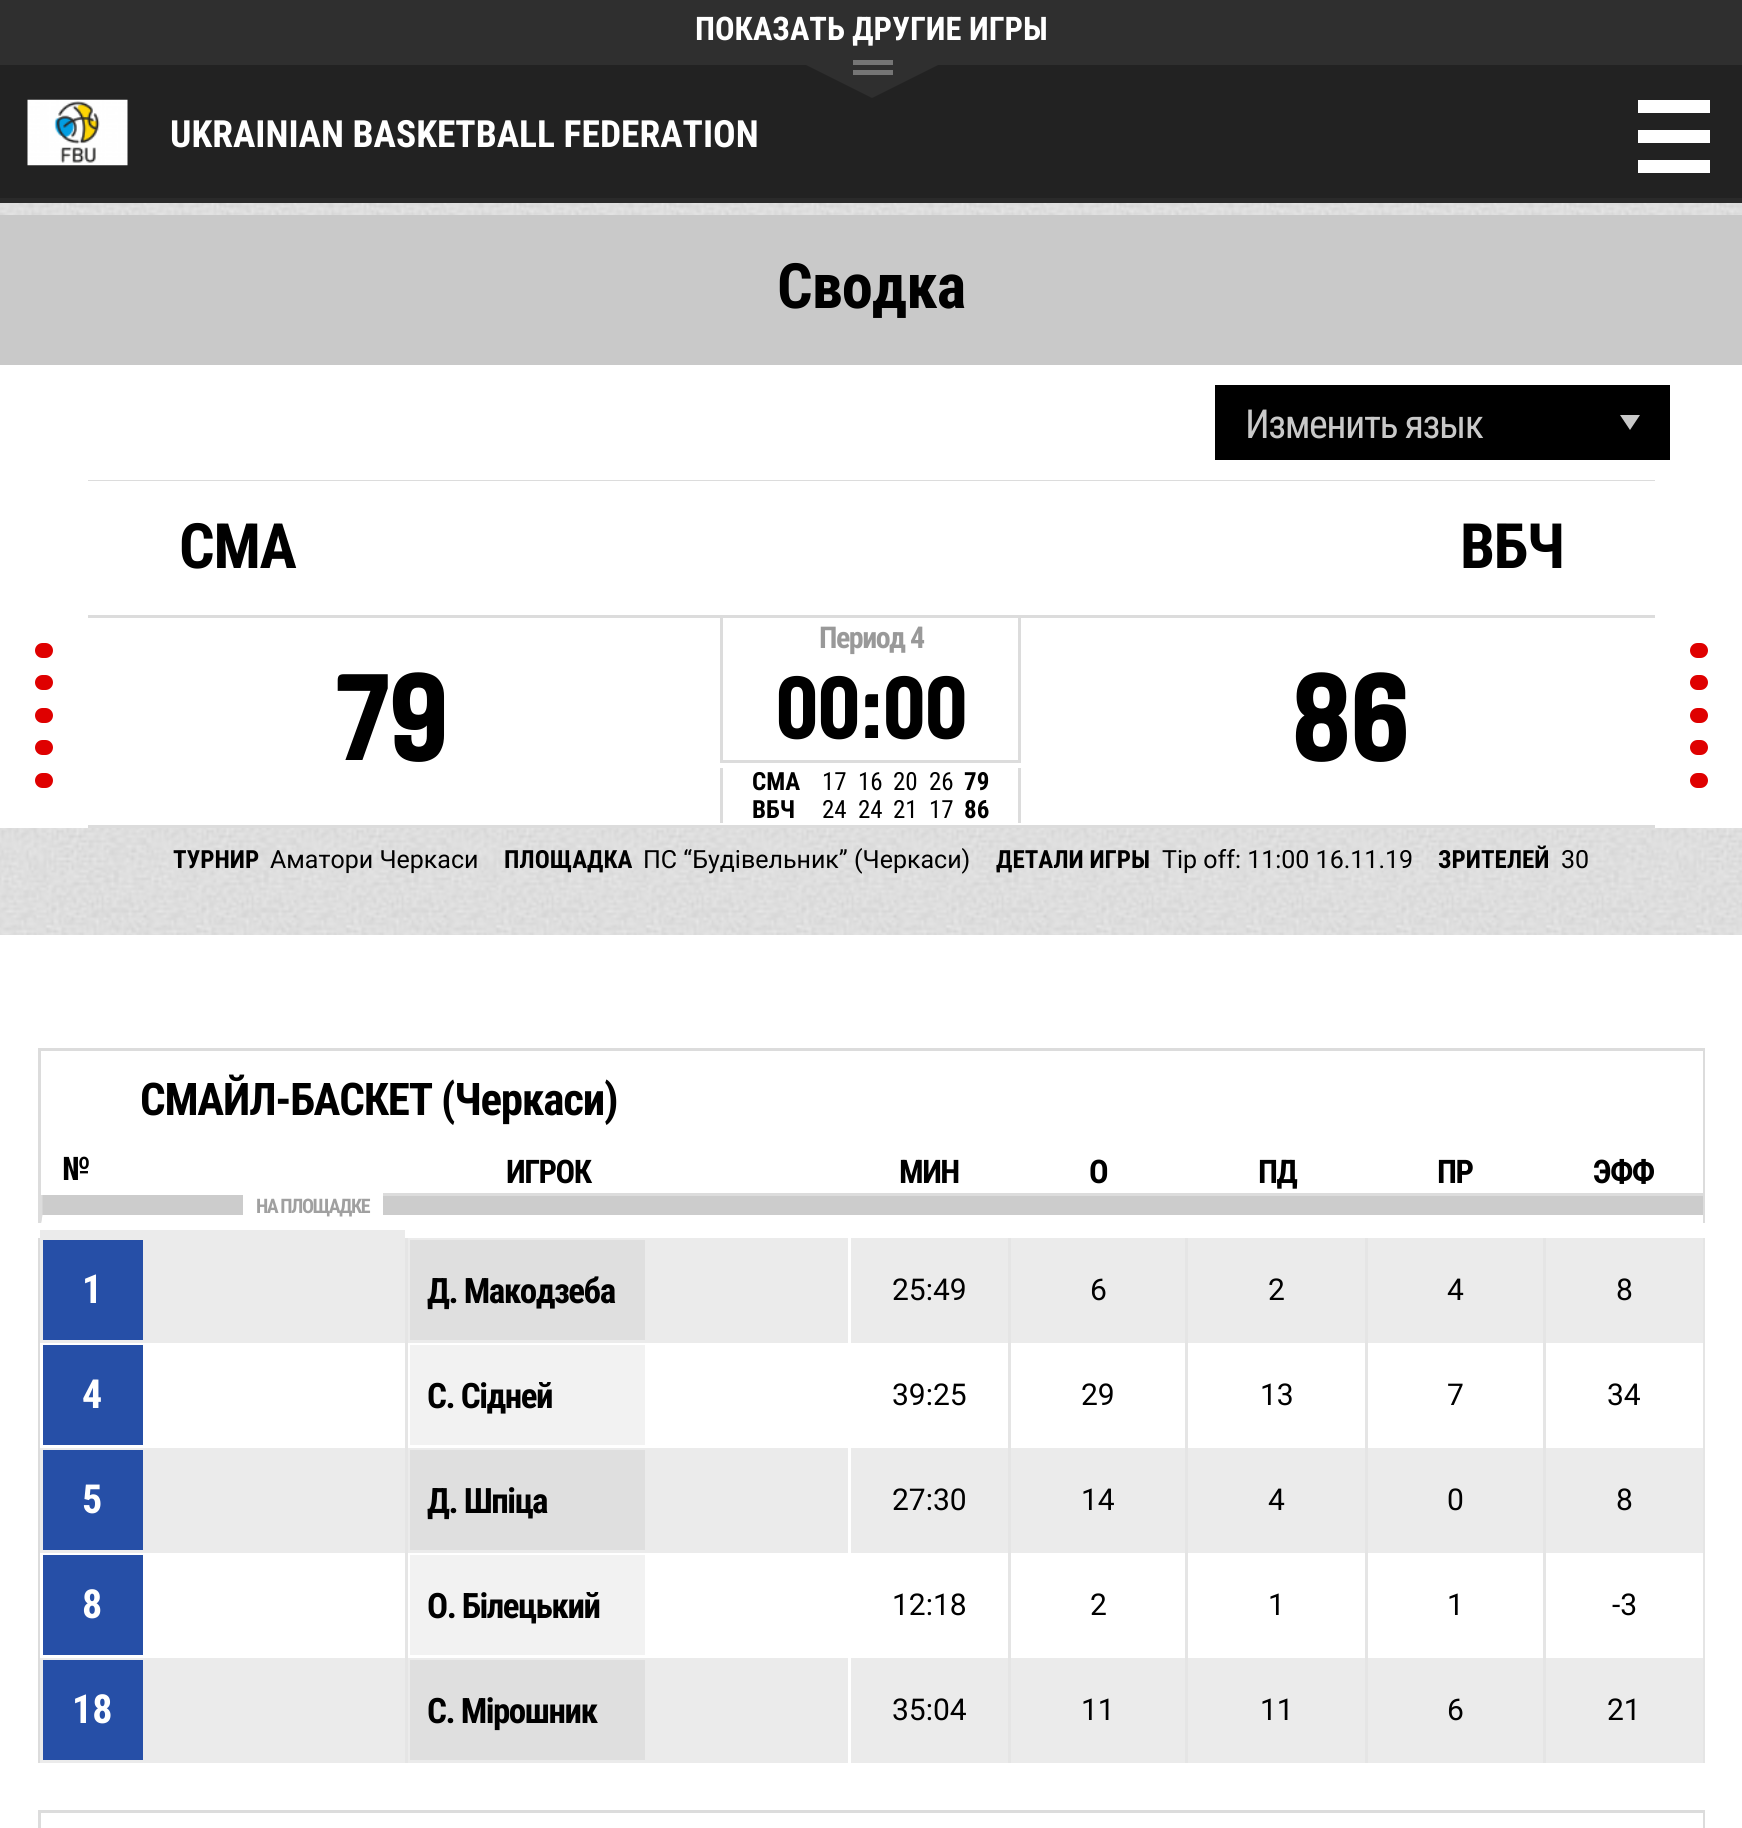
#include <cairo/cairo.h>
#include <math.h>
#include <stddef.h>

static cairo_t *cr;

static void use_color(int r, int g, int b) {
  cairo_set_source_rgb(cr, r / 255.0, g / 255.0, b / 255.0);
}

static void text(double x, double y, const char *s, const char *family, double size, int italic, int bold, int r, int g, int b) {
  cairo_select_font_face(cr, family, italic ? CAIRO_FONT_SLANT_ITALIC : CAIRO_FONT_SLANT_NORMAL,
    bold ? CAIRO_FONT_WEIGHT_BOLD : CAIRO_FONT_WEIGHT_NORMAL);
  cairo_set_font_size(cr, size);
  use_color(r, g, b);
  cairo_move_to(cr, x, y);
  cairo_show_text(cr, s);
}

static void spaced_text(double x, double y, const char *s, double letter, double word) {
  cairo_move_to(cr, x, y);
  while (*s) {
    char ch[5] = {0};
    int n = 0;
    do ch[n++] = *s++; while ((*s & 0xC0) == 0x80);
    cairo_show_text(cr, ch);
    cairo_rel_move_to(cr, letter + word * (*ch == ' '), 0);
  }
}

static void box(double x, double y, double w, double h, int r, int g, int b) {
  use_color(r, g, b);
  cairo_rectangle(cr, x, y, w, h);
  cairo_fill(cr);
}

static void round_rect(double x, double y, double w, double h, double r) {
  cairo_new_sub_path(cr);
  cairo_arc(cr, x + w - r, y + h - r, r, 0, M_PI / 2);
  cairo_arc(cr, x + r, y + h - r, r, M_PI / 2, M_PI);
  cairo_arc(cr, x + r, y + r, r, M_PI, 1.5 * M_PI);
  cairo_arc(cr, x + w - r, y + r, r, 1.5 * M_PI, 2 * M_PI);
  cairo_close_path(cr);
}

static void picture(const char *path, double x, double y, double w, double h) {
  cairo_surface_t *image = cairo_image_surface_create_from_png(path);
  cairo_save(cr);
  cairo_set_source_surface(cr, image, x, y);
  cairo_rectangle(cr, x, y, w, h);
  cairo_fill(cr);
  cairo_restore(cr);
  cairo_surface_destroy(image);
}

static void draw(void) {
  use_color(255, 255, 255);
  cairo_paint(cr);
  picture("img_01.png", 0, 203, 1742, 732);
  box(0, 65, 1742, 133, 34, 34, 34);
  box(0, 198, 1742, 5, 42, 42, 42);
  box(0, 0, 1742, 65, 47, 47, 47);
  cairo_new_path(cr);
  cairo_move_to(cr, 772, 48);
  cairo_line_to(cr, 972, 48);
  cairo_line_to(cr, 872, 98);
  cairo_close_path(cr);
  cairo_fill(cr);
  box(853, 60, 40, 5, 117, 117, 117);
  box(853, 70, 40, 5, 117, 117, 117);
  picture("img_02.png", 27, 99, 101, 67);
  box(0, 215, 1742, 150, 201, 201, 201);
  box(1638, 100, 72, 13, 255, 255, 255);
  box(1638, 130, 72, 13, 255, 255, 255);
  box(1638, 160, 72, 13, 255, 255, 255);
  box(0, 365, 1742, 463, 255, 255, 255);
  box(1215, 385, 455, 75, 0, 0, 0);
  use_color(201, 201, 201);
  cairo_new_path(cr);
  cairo_move_to(cr, 1620, 415);
  cairo_line_to(cr, 1640, 415);
  cairo_line_to(cr, 1630, 430);
  cairo_close_path(cr);
  cairo_fill(cr);
  box(88, 480, 1567, 1, 220, 220, 220);
  use_color(223, 0, 0);
  round_rect(35, 643, 18, 15, 7.5);
  cairo_fill(cr);
  round_rect(35, 675, 18, 15, 7.5);
  cairo_fill(cr);
  round_rect(35, 708, 18, 15, 7.5);
  cairo_fill(cr);
  round_rect(35, 740, 18, 15, 7.5);
  cairo_fill(cr);
  round_rect(35, 773, 18, 15, 7.5);
  cairo_fill(cr);
  box(88, 615, 1567, 3, 220, 220, 220);
  box(88, 825, 1567, 3, 220, 220, 220);
  box(1018, 618, 3, 145, 220, 220, 220);
  box(720, 618, 3, 40, 220, 220, 220);
  box(720, 760, 300, 3, 220, 220, 220);
  box(720, 655, 3, 108, 220, 220, 220);
  box(1018, 768, 3, 55, 220, 220, 220);
  box(720, 768, 3, 55, 220, 220, 220);
  use_color(223, 0, 0);
  round_rect(1690, 643, 18, 15, 7.5);
  cairo_fill(cr);
  round_rect(1690, 675, 18, 15, 7.5);
  cairo_fill(cr);
  round_rect(1690, 708, 18, 15, 7.5);
  cairo_fill(cr);
  round_rect(1690, 740, 18, 15, 7.5);
  cairo_fill(cr);
  round_rect(1690, 773, 18, 15, 7.5);
  cairo_fill(cr);
  box(38, 1048, 1667, 3, 220, 220, 220);
  box(1703, 1048, 2, 175, 220, 220, 220);
  box(38, 1048, 3, 102, 220, 220, 220);
  box(41, 1195, 202, 28, 204, 204, 204);
  use_color(255, 255, 255);
  cairo_new_path(cr);
  cairo_move_to(cr, 245, 1230);
  cairo_line_to(cr, 40, 1230);
  cairo_line_to(cr, 42, 1215);
  cairo_line_to(cr, 245, 1215);
  cairo_close_path(cr);
  cairo_fill(cr);
  use_color(220, 220, 220);
  cairo_new_path(cr);
  cairo_move_to(cr, 40, 1230);
  cairo_line_to(cr, 40, 1195);
  cairo_line_to(cr, 42.5, 1195);
  cairo_line_to(cr, 42.5, 1215);
  cairo_close_path(cr);
  cairo_fill(cr);
  box(38, 1150, 3, 613, 220, 220, 220);
  box(383, 1193, 1322, 3, 220, 220, 220);
  box(38, 1223, 4, 15, 255, 255, 255);
  box(383, 1196, 1320, 19, 204, 204, 204);
  box(405, 1230, 3, 533, 229, 229, 229);
  box(1008, 1230, 3, 533, 229, 229, 229);
  box(1185, 1230, 3, 533, 229, 229, 229);
  box(1365, 1230, 3, 533, 229, 229, 229);
  box(1543, 1230, 3, 533, 229, 229, 229);
  box(1703, 1230, 2, 533, 229, 229, 229);
  box(405, 1230, 1300, 8, 255, 255, 255);
  box(40, 1230, 365, 113, 235, 235, 235);
  box(43, 1240, 100, 100, 38, 79, 167);
  box(408, 1238, 440, 105, 235, 235, 235);
  box(410, 1240, 235, 100, 223, 223, 223);
  box(851, 1238, 157, 105, 235, 235, 235);
  box(1011, 1238, 174, 105, 235, 235, 235);
  box(1188, 1238, 177, 105, 235, 235, 235);
  box(1368, 1238, 175, 105, 235, 235, 235);
  box(1546, 1238, 157, 105, 235, 235, 235);
  box(40, 1343, 1, 105, 255, 255, 255);
  box(43, 1345, 100, 100, 38, 79, 167);
  box(410, 1345, 235, 100, 242, 242, 242);
  box(40, 1448, 365, 105, 235, 235, 235);
  box(43, 1450, 100, 100, 38, 79, 167);
  box(408, 1448, 440, 105, 235, 235, 235);
  box(410, 1450, 235, 100, 223, 223, 223);
  box(851, 1448, 157, 105, 235, 235, 235);
  box(1011, 1448, 174, 105, 235, 235, 235);
  box(1188, 1448, 177, 105, 235, 235, 235);
  box(1368, 1448, 175, 105, 235, 235, 235);
  box(1546, 1448, 157, 105, 235, 235, 235);
  box(40, 1553, 1, 105, 255, 255, 255);
  box(43, 1555, 100, 100, 38, 79, 167);
  box(410, 1555, 235, 100, 242, 242, 242);
  box(40, 1658, 365, 105, 235, 235, 235);
  box(43, 1660, 100, 100, 38, 79, 167);
  box(408, 1658, 440, 105, 235, 235, 235);
  box(410, 1660, 235, 100, 223, 223, 223);
  box(851, 1658, 157, 105, 235, 235, 235);
  box(1011, 1658, 174, 105, 235, 235, 235);
  box(1188, 1658, 177, 105, 235, 235, 235);
  box(1368, 1658, 175, 105, 235, 235, 235);
  box(1546, 1658, 157, 105, 235, 235, 235);
  box(38, 1810, 1667, 3, 220, 220, 220);
  box(1703, 1810, 2, 18, 220, 220, 220);
  box(38, 1810, 3, 18, 220, 220, 220);
  text(695, 40, "ПОКАЗАТЬ ДРУГИЕ ИГРЫ", "Roboto Condensed", 32.5, 0, 1, 255, 255, 255);
  text(170, 147, "UKRAINIAN BASKETBALL FEDERATION", "Roboto Condensed", 37.5, 0, 1, 255, 255, 255);
  cairo_set_font_size(cr, 62.5);
  use_color(0, 0, 0);
  spaced_text(777, 308, "Сводка", -1, 0);
  cairo_select_font_face(cr, "Roboto Condensed", CAIRO_FONT_SLANT_NORMAL, CAIRO_FONT_WEIGHT_NORMAL);
  cairo_set_font_size(cr, 40);
  use_color(201, 201, 201);
  spaced_text(1245, 438, "Изменить язык", -1.5, 0);
  cairo_select_font_face(cr, "Roboto Condensed", CAIRO_FONT_SLANT_NORMAL, CAIRO_FONT_WEIGHT_BOLD);
  cairo_set_font_size(cr, 62.5);
  use_color(0, 0, 0);
  spaced_text(179, 568, "СМА", -1.25, 0);
  text(336, 760, "79", "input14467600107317", 120, 0, 0, 0, 0, 0);
  cairo_select_font_face(cr, "Roboto Condensed", CAIRO_FONT_SLANT_NORMAL, CAIRO_FONT_WEIGHT_BOLD);
  cairo_set_font_size(cr, 30);
  use_color(153, 153, 153);
  spaced_text(819, 648, "Период 4", -1.5, 0);
  text(776, 738, "00:00", "input14467600107317", 85, 0, 0, 0, 0, 0);
  text(752, 790, "СМА", "Roboto Condensed", 25, 0, 1, 0, 0, 0);
  text(822, 790, "17", "Roboto Condensed", 25, 0, 0, 0, 0, 0);
  text(858, 790, "16", "Roboto Condensed", 25, 0, 0, 0, 0, 0);
  text(893, 790, "20", "Roboto Condensed", 25, 0, 0, 0, 0, 0);
  text(929, 790, "26", "Roboto Condensed", 25, 0, 0, 0, 0, 0);
  text(964, 790, "79", "Roboto Condensed", 25, 0, 1, 0, 0, 0);
  text(752, 818, "ВБЧ", "Roboto Condensed", 25, 0, 1, 0, 0, 0);
  text(822, 818, "24", "Roboto Condensed", 25, 0, 0, 0, 0, 0);
  text(858, 818, "24", "Roboto Condensed", 25, 0, 0, 0, 0, 0);
  text(893, 818, "21", "Roboto Condensed", 25, 0, 0, 0, 0, 0);
  text(929, 818, "17", "Roboto Condensed", 25, 0, 0, 0, 0, 0);
  text(964, 818, "86", "Roboto Condensed", 25, 0, 1, 0, 0, 0);
  cairo_set_font_size(cr, 62.5);
  spaced_text(1460, 568, "ВБЧ", -1.25, 0);
  text(1292, 760, "86", "input14467600107317", 120, 0, 0, 0, 0, 0);
  text(173, 868, "ТУРНИР", "Roboto Condensed", 25, 0, 1, 0, 0, 0);
  text(270, 868, "Аматори Черкаси", "Roboto", 25, 0, 0, 0, 0, 0);
  text(504, 868, "ПЛОЩАДКА", "Roboto Condensed", 25, 0, 1, 0, 0, 0);
  text(643, 868, "ПС “Будівельник” (Черкаси)", "Roboto", 25, 0, 0, 0, 0, 0);
  text(996, 868, "ДЕТАЛИ ИГРЫ", "Roboto Condensed", 25, 0, 1, 0, 0, 0);
  text(1162, 868, "Tip off: 11:00 16.11.19", "Roboto", 25, 0, 0, 0, 0, 0);
  text(1438, 868, "ЗРИТЕЛЕЙ", "Roboto Condensed", 25, 0, 1, 0, 0, 0);
  text(1561, 868, "30", "Roboto", 25, 0, 0, 0, 0, 0);
  cairo_select_font_face(cr, "Roboto Condensed", CAIRO_FONT_SLANT_NORMAL, CAIRO_FONT_WEIGHT_BOLD);
  cairo_set_font_size(cr, 45);
  spaced_text(140, 1115, "СМАЙЛ-БАСКЕТ (Черкаси)", -1.25, 0);
  cairo_set_font_size(cr, 32.5);
  spaced_text(62, 1180, "№", -1.5, 0);
  spaced_text(506, 1183, "ИГРОК", -1.5, 0);
  spaced_text(899, 1183, "МИН", -1.5, 0);
  spaced_text(1089, 1183, "О", -1.5, 0);
  spaced_text(1258, 1183, "ПД", -1.5, 0);
  spaced_text(1437, 1183, "ПР", -1.5, 0);
  spaced_text(1593, 1183, "ЭФФ", -1.5, 0);
  cairo_set_font_size(cr, 20);
  use_color(160, 160, 160);
  spaced_text(256, 1213, "НА ПЛОЩАДКЕ", -1.5, 0);
  text(82, 1303, "1", "Roboto Condensed", 40, 0, 1, 255, 255, 255);
  cairo_set_font_size(cr, 35);
  use_color(0, 0, 0);
  spaced_text(427, 1303, "Д. Макодзеба", -1.5, 0);
  text(892, 1300, "25:49", "Roboto", 30, 0, 0, 0, 0, 0);
  text(1090, 1300, "6", "Roboto", 30, 0, 0, 0, 0, 0);
  text(1268, 1300, "2", "Roboto", 30, 0, 0, 0, 0, 0);
  text(1447, 1300, "4", "Roboto", 30, 0, 0, 0, 0, 0);
  text(1616, 1300, "8", "Roboto", 30, 0, 0, 0, 0, 0);
  text(82, 1408, "4", "Roboto Condensed", 40, 0, 1, 255, 255, 255);
  cairo_set_font_size(cr, 35);
  use_color(0, 0, 0);
  spaced_text(427, 1408, "С. Сідней", -1.5, 0);
  text(892, 1405, "39:25", "Roboto", 30, 0, 0, 0, 0, 0);
  text(1081, 1405, "29", "Roboto", 30, 0, 0, 0, 0, 0);
  text(1260, 1405, "13", "Roboto", 30, 0, 0, 0, 0, 0);
  text(1447, 1405, "7", "Roboto", 30, 0, 0, 0, 0, 0);
  text(1607, 1405, "34", "Roboto", 30, 0, 0, 0, 0, 0);
  text(82, 1513, "5", "Roboto Condensed", 40, 0, 1, 255, 255, 255);
  cairo_set_font_size(cr, 35);
  use_color(0, 0, 0);
  spaced_text(427, 1513, "Д. Шпіца", -1.5, 0);
  text(892, 1510, "27:30", "Roboto", 30, 0, 0, 0, 0, 0);
  text(1081, 1510, "14", "Roboto", 30, 0, 0, 0, 0, 0);
  text(1268, 1510, "4", "Roboto", 30, 0, 0, 0, 0, 0);
  text(1447, 1510, "0", "Roboto", 30, 0, 0, 0, 0, 0);
  text(1616, 1510, "8", "Roboto", 30, 0, 0, 0, 0, 0);
  text(82, 1618, "8", "Roboto Condensed", 40, 0, 1, 255, 255, 255);
  cairo_set_font_size(cr, 35);
  use_color(0, 0, 0);
  spaced_text(427, 1618, "О. Білецький", -1.5, 0);
  text(892, 1615, "12:18", "Roboto", 30, 0, 0, 0, 0, 0);
  text(1090, 1615, "2", "Roboto", 30, 0, 0, 0, 0, 0);
  text(1268, 1615, "1", "Roboto", 30, 0, 0, 0, 0, 0);
  text(1447, 1615, "1", "Roboto", 30, 0, 0, 0, 0, 0);
  text(1612, 1615, "-3", "Roboto", 30, 0, 0, 0, 0, 0);
  text(72, 1723, "18", "Roboto Condensed", 40, 0, 1, 255, 255, 255);
  cairo_set_font_size(cr, 35);
  use_color(0, 0, 0);
  spaced_text(427, 1723, "С. Мірошник", -1.5, 0);
  text(892, 1720, "35:04", "Roboto", 30, 0, 0, 0, 0, 0);
  text(1081, 1720, "11", "Roboto", 30, 0, 0, 0, 0, 0);
  text(1260, 1720, "11", "Roboto", 30, 0, 0, 0, 0, 0);
  text(1447, 1720, "6", "Roboto", 30, 0, 0, 0, 0, 0);
  text(1607, 1720, "21", "Roboto", 30, 0, 0, 0, 0, 0);
}

int main(void) {
  cairo_surface_t *surface = cairo_image_surface_create(CAIRO_FORMAT_RGB24, 1742, 1828);
  cr = cairo_create(surface);
  cairo_font_options_t *options = cairo_font_options_create();
  cairo_font_options_set_hint_metrics(options, CAIRO_HINT_METRICS_OFF);
  cairo_font_options_set_hint_style(options, CAIRO_HINT_STYLE_NONE);
  cairo_set_font_options(cr, options);
  cairo_set_miter_limit(cr, 4);
  draw();
  cairo_surface_write_to_png(surface, "out.png");
  cairo_font_options_destroy(options);
  cairo_destroy(cr);
  cairo_surface_destroy(surface);
  return 0;
}
